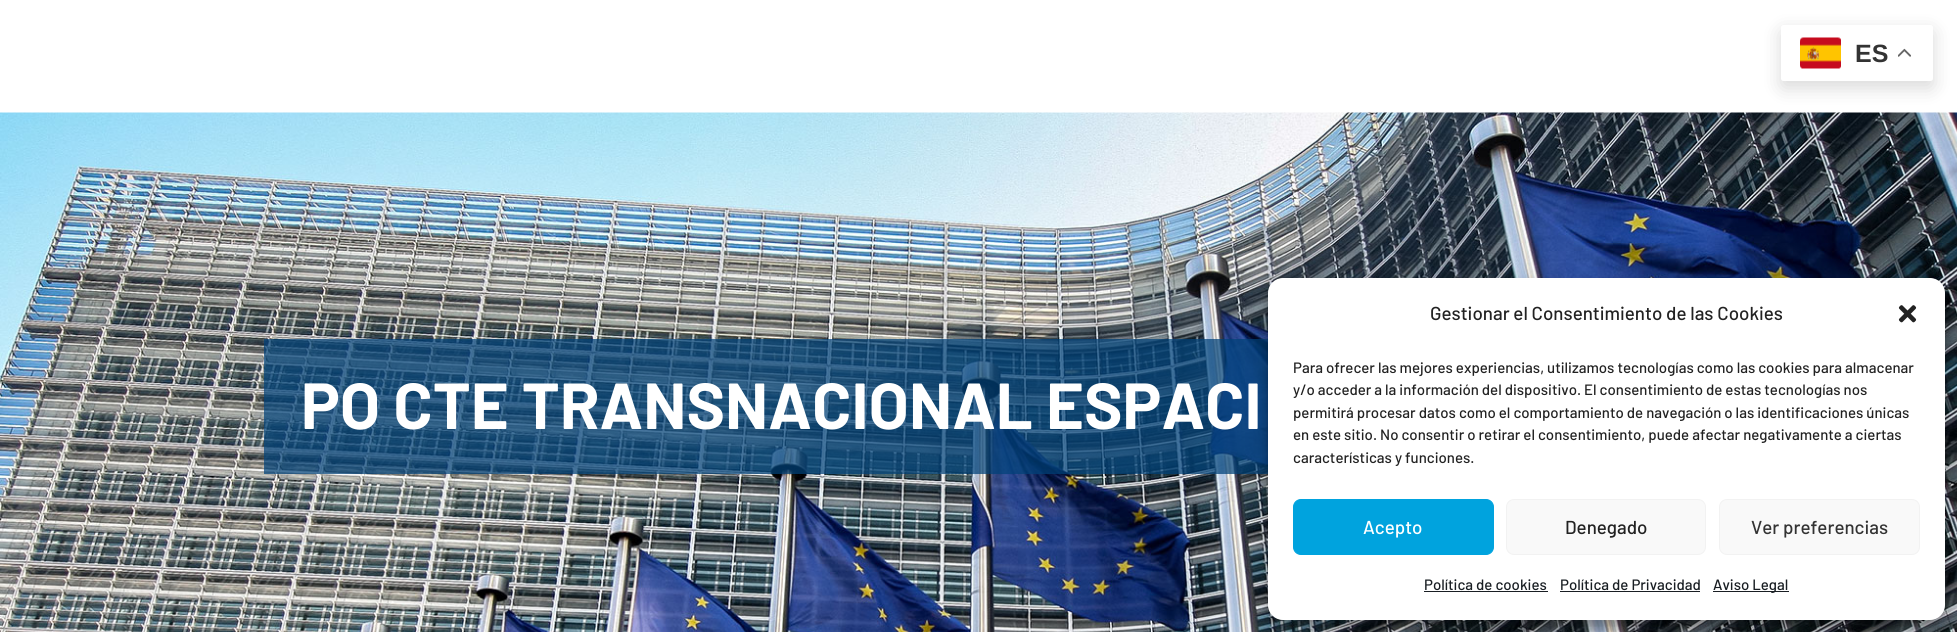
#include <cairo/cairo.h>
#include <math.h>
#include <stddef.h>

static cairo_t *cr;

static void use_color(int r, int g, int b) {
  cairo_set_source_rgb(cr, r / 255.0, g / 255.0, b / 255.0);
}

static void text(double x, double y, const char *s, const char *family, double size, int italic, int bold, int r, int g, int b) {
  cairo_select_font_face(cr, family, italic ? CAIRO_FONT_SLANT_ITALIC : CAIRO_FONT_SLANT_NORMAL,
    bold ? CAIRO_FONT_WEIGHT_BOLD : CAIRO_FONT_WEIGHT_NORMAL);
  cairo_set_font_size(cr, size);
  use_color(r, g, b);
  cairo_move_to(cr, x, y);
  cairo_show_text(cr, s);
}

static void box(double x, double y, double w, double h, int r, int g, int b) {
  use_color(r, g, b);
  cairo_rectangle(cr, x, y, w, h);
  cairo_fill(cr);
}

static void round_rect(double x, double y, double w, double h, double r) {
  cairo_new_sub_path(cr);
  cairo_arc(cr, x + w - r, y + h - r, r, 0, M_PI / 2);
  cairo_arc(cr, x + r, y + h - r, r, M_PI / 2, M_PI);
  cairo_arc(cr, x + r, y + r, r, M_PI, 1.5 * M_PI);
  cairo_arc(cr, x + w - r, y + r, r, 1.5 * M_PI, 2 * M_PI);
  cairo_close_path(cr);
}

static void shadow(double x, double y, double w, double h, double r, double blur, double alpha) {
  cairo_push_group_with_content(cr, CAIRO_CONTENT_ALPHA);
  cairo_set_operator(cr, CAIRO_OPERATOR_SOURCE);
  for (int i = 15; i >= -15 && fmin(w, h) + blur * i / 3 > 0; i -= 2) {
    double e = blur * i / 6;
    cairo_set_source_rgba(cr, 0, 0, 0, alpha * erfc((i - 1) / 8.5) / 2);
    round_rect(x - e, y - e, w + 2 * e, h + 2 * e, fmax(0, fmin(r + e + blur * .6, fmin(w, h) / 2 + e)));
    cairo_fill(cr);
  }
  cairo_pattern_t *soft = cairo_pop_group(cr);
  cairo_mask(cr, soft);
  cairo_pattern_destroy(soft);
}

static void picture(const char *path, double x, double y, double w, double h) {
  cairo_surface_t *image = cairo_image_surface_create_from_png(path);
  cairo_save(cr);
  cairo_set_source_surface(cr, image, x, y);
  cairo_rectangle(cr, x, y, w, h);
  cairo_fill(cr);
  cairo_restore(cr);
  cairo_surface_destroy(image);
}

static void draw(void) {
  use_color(255, 255, 255);
  cairo_paint(cr);
  picture("img_03.png", 0, 112, 1957, 520);
  use_color(0, 0, 0);
  shadow(1781, 31, 152, 57, 2.5, 9.5, 0.15);
  use_color(255, 255, 255);
  round_rect(1781, 25, 152, 56, 2.5);
  cairo_fill(cr);
  picture("img_01.png", 1800, 37, 41, 32);
  picture("img_02.png", 1898, 48, 13, 9);
  cairo_set_source_rgba(cr, 0, 0.255, 0.475, 0.72);
  cairo_rectangle(cr, 264, 339, 1004, 135);
  cairo_fill(cr);
  use_color(0, 0, 0);
  shadow(1268, 285, 677, 343, 15, 4, 0.23);
  shadow(1268, 290, 677, 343, 15, 12.5, 0.19);
  use_color(255, 255, 255);
  round_rect(1268, 278, 677, 342, 15);
  cairo_fill(cr);
  picture("img_04.png", 1898, 305, 19, 18);
  use_color(0, 163, 222);
  round_rect(1293.5, 499.5, 200, 55, 7.5);
  cairo_fill_preserve(cr);
  cairo_set_line_width(cr, 1);
  cairo_stroke(cr);
  use_color(249, 249, 249);
  round_rect(1506.5, 499.5, 199, 55, 7.5);
  cairo_fill_preserve(cr);
  use_color(242, 242, 242);
  cairo_stroke(cr);
  use_color(249, 249, 249);
  round_rect(1719.5, 499.5, 200, 55, 7.5);
  cairo_fill_preserve(cr);
  use_color(242, 242, 242);
  cairo_stroke(cr);
  box(1424, 591, 124, 1, 25, 30, 35);
  box(1560, 591, 140, 1, 25, 30, 35);
  box(1713, 591, 76, 1, 25, 30, 35);
  text(1855, 62, "ES", "Liberation Sans", 25, 0, 1, 51, 51, 51);
  text(301, 429, "PO CTE TRANSNACIONAL ESPACI", "Barlow", 65, 0, 1, 255, 255, 255);
  text(1430, 320, "Gestionar el Consentimiento de las Cookies", "Barlow Medium", 18.75, 0, 0, 34, 34, 34);
  text(1293, 373, "Para ofrecer las mejores experiencias, utilizamos tecnologías como las cookies para almacenar", "Barlow Medium", 15, 0, 0, 34, 34, 34);
  text(1293, 395, "y/o acceder a la información del dispositivo. El consentimiento de estas tecnologías nos", "Barlow Medium", 15, 0, 0, 34, 34, 34);
  text(1293, 418, "permitirá procesar datos como el comportamiento de navegación o las identificaciones únicas", "Barlow Medium", 15, 0, 0, 34, 34, 34);
  text(1293, 440, "en este sitio. No consentir o retirar el consentimiento, puede afectar negativamente a ciertas", "Barlow Medium", 15, 0, 0, 34, 34, 34);
  text(1293, 463, "características y funciones.", "Barlow Medium", 15, 0, 0, 34, 34, 34);
  text(1363, 534, "Acepto", "Barlow Medium", 18.75, 0, 0, 255, 255, 255);
  text(1565, 534, "Denegado", "Barlow Medium", 18.75, 0, 0, 34, 34, 34);
  text(1751, 534, "Ver preferencias", "Barlow Medium", 18.75, 0, 0, 51, 51, 51);
  text(1424, 590, "Política de cookies", "Barlow Medium", 15, 0, 0, 25, 30, 35);
  text(1560, 590, "Política de Privacidad", "Barlow Medium", 15, 0, 0, 25, 30, 35);
  text(1713, 590, "Aviso Legal", "Barlow Medium", 15, 0, 0, 25, 30, 35);
}

int main(void) {
  cairo_surface_t *surface = cairo_image_surface_create(CAIRO_FORMAT_RGB24, 1957, 632);
  cr = cairo_create(surface);
  cairo_font_options_t *options = cairo_font_options_create();
  cairo_font_options_set_hint_metrics(options, CAIRO_HINT_METRICS_OFF);
  cairo_font_options_set_hint_style(options, CAIRO_HINT_STYLE_NONE);
  cairo_set_font_options(cr, options);
  cairo_set_miter_limit(cr, 4);
  draw();
  cairo_surface_write_to_png(surface, "out.png");
  cairo_font_options_destroy(options);
  cairo_destroy(cr);
  cairo_surface_destroy(surface);
  return 0;
}
